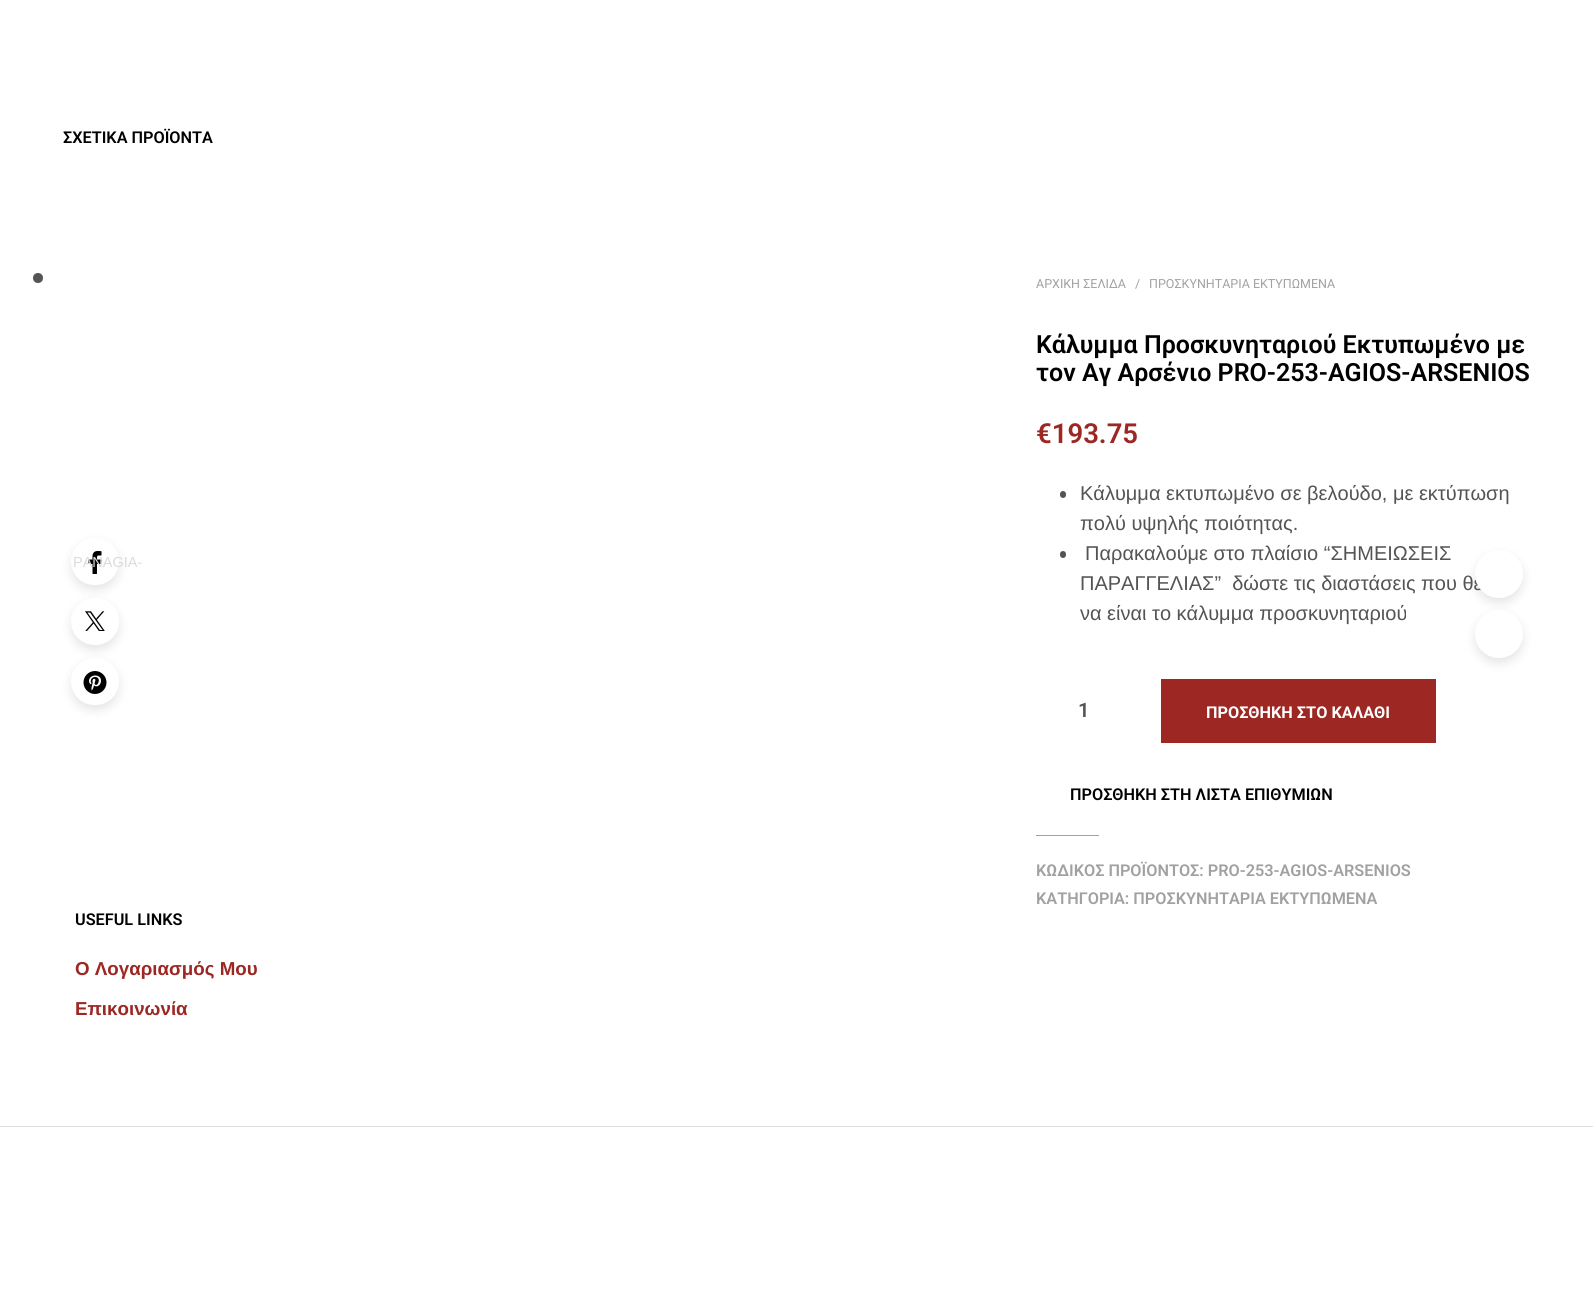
#include <cairo/cairo.h>
#include <math.h>
#include <stddef.h>

static cairo_t *cr;

static void use_color(int r, int g, int b) {
  cairo_set_source_rgb(cr, r / 255.0, g / 255.0, b / 255.0);
}

static void text(double x, double y, const char *s, const char *family, double size, int italic, int bold, int r, int g, int b) {
  cairo_select_font_face(cr, family, italic ? CAIRO_FONT_SLANT_ITALIC : CAIRO_FONT_SLANT_NORMAL,
    bold ? CAIRO_FONT_WEIGHT_BOLD : CAIRO_FONT_WEIGHT_NORMAL);
  cairo_set_font_size(cr, size);
  use_color(r, g, b);
  cairo_move_to(cr, x, y);
  cairo_show_text(cr, s);
}

static void box(double x, double y, double w, double h, int r, int g, int b) {
  use_color(r, g, b);
  cairo_rectangle(cr, x, y, w, h);
  cairo_fill(cr);
}

static void round_rect(double x, double y, double w, double h, double r) {
  cairo_new_sub_path(cr);
  cairo_arc(cr, x + w - r, y + h - r, r, 0, M_PI / 2);
  cairo_arc(cr, x + r, y + h - r, r, M_PI / 2, M_PI);
  cairo_arc(cr, x + r, y + r, r, M_PI, 1.5 * M_PI);
  cairo_arc(cr, x + w - r, y + r, r, 1.5 * M_PI, 2 * M_PI);
  cairo_close_path(cr);
}

static void shadow(double x, double y, double w, double h, double r, double blur, double alpha) {
  cairo_push_group_with_content(cr, CAIRO_CONTENT_ALPHA);
  cairo_set_operator(cr, CAIRO_OPERATOR_SOURCE);
  for (int i = 15; i >= -15 && fmin(w, h) + blur * i / 3 > 0; i -= 2) {
    double e = blur * i / 6;
    cairo_set_source_rgba(cr, 0, 0, 0, alpha * erfc((i - 1) / 8.5) / 2);
    round_rect(x - e, y - e, w + 2 * e, h + 2 * e, fmax(0, fmin(r + e + blur * .6, fmin(w, h) / 2 + e)));
    cairo_fill(cr);
  }
  cairo_pattern_t *soft = cairo_pop_group(cr);
  cairo_mask(cr, soft);
  cairo_pattern_destroy(soft);
}

static void picture(const char *path, double x, double y, double w, double h) {
  cairo_surface_t *image = cairo_image_surface_create_from_png(path);
  cairo_save(cr);
  cairo_set_source_surface(cr, image, x, y);
  cairo_rectangle(cr, x, y, w, h);
  cairo_fill(cr);
  cairo_restore(cr);
  cairo_surface_destroy(image);
}

static void draw(void) {
  use_color(255, 255, 255);
  cairo_paint(cr);
  use_color(84, 84, 84);
  cairo_arc(cr, 38, 278, 5, 0, 2 * M_PI);
  cairo_fill(cr);
  use_color(0, 0, 0);
  shadow(71, 543, 48, 47, 23.5, 5, 0.1);
  use_color(255, 255, 255);
  round_rect(71, 538, 48, 47, 23.5);
  cairo_fill(cr);
  picture("img_01.png", 88, 551, 14, 23);
  use_color(0, 0, 0);
  shadow(71, 603, 48, 47, 23.5, 5, 0.1);
  use_color(255, 255, 255);
  round_rect(71, 598, 48, 47, 23.5);
  cairo_fill(cr);
  picture("img_02.png", 85, 611, 20, 20);
  use_color(0, 0, 0);
  shadow(71, 663, 48, 47, 23.5, 5, 0.1);
  use_color(255, 255, 255);
  round_rect(71, 658, 48, 47, 23.5);
  cairo_fill(cr);
  picture("img_03.png", 83, 671, 24, 23);
  use_color(84, 84, 84);
  round_rect(1060, 491, 6, 7, 3);
  cairo_fill(cr);
  round_rect(1060, 551, 6, 7, 3);
  cairo_fill(cr);
  use_color(0, 0, 0);
  shadow(1475, 555, 48, 48, 24, 5, 0.1);
  shadow(1475, 615, 48, 48, 24, 5, 0.1);
  use_color(255, 255, 255);
  cairo_arc(cr, 1499, 634, 24, 0, 2 * M_PI);
  cairo_fill(cr);
  box(1161, 679, 275, 64, 156, 39, 35);
  box(1036, 835, 63, 1, 161, 161, 161);
  box(0, 1126, 1593, 1, 221, 221, 221);
  text(63, 143, "ΣΧΕΤΙΚΑ ΠΡΟΪΟΝΤΑ", "Roboto SemiBold", 16.25, 0, 0, 0, 0, 0);
  text(73, 567, "PANAGIA-", "Liberation Sans", 14.5, 0, 0, 219, 219, 219);
  text(1036, 288, "ΑΡΧΙΚΗ ΣΕΛΙΔΑ", "Roboto", 12.5, 0, 0, 161, 161, 161);
  text(1135, 288, "/", "Roboto", 12.5, 0, 0, 161, 161, 161);
  text(1149, 288, "ΠΡΟΣΚΥΝΗΤΑΡΙΑ ΕΚΤΥΠΩΜΕΝΑ", "Roboto", 12.5, 0, 0, 161, 161, 161);
  text(1036, 353, "Κάλυμμα Προσκυνηταριού Εκτυπωμένο με", "Roboto SemiBold", 25, 0, 0, 0, 0, 0);
  text(1036, 381, "τον Αγ Αρσένιο PRO-253-AGIOS-ARSENIOS", "Roboto SemiBold", 25, 0, 0, 0, 0, 0);
  text(1036, 443, "€193.75", "Roboto SemiBold", 27.5, 0, 0, 156, 39, 35);
  text(1080, 500, "Κάλυμμα εκτυπωμένο σε βελούδο, με εκτύπωση", "Liberation Sans", 20, 0, 0, 84, 84, 84);
  text(1080, 530, "πολύ υψηλής ποιότητας.", "Liberation Sans", 20, 0, 0, 84, 84, 84);
  text(1085, 560, "Παρακαλούμε στο πλαίσιο “ΣΗΜΕΙΩΣΕΙΣ", "Liberation Sans", 20, 0, 0, 84, 84, 84);
  text(1080, 590, "ΠΑΡΑΓΓΕΛΙΑΣ”  δώστε τις διαστάσεις που θέ", "Liberation Sans", 20, 0, 0, 84, 84, 84);
  text(1080, 620, "να είναι το κάλυμμα προσκυνηταριού", "Liberation Sans", 20, 0, 0, 84, 84, 84);
  use_color(255, 255, 255);
  cairo_new_path(cr);
  cairo_arc(cr, 1499, 574, 24, 0, 2 * M_PI);
  cairo_fill(cr);
  text(1078, 717, "1", "Roboto SemiBold", 20, 0, 0, 84, 84, 84);
  text(1206, 718, "ΠΡΟΣΘΗΚΗ ΣΤΟ ΚΑΛΑΘΙ", "Roboto", 16.25, 0, 1, 255, 255, 255);
  text(1070, 800, "ΠΡΟΣΘΗΚΗ ΣΤΗ ΛΙΣΤΑ ΕΠΙΘΥΜΙΩΝ", "Roboto SemiBold", 16.25, 0, 0, 0, 0, 0);
  text(1036, 876, "ΚΩΔΙΚΟΣ ΠΡΟΪΟΝΤΟΣ: PRO-253-AGIOS-ARSENIOS", "Roboto SemiBold", 16.25, 0, 0, 161, 161, 161);
  text(1036, 904, "ΚΑΤΗΓΟΡΙΑ: ΠΡΟΣΚΥΝΗΤΑΡΙΑ ΕΚΤΥΠΩΜΕΝΑ", "Roboto SemiBold", 16.25, 0, 0, 161, 161, 161);
  text(75, 925, "USEFUL LINKS", "Roboto SemiBold", 16.25, 0, 0, 0, 0, 0);
  text(75, 975, "Ο Λογαριασμός Μου", "Liberation Sans", 18.75, 0, 1, 156, 39, 35);
  text(75, 1015, "Επικοινωνία", "Liberation Sans", 18.75, 0, 1, 156, 39, 35);
}

int main(void) {
  cairo_surface_t *surface = cairo_image_surface_create(CAIRO_FORMAT_RGB24, 1593, 1291);
  cr = cairo_create(surface);
  cairo_font_options_t *options = cairo_font_options_create();
  cairo_font_options_set_hint_metrics(options, CAIRO_HINT_METRICS_OFF);
  cairo_font_options_set_hint_style(options, CAIRO_HINT_STYLE_NONE);
  cairo_set_font_options(cr, options);
  cairo_set_miter_limit(cr, 4);
  draw();
  cairo_surface_write_to_png(surface, "out.png");
  cairo_font_options_destroy(options);
  cairo_destroy(cr);
  cairo_surface_destroy(surface);
  return 0;
}
